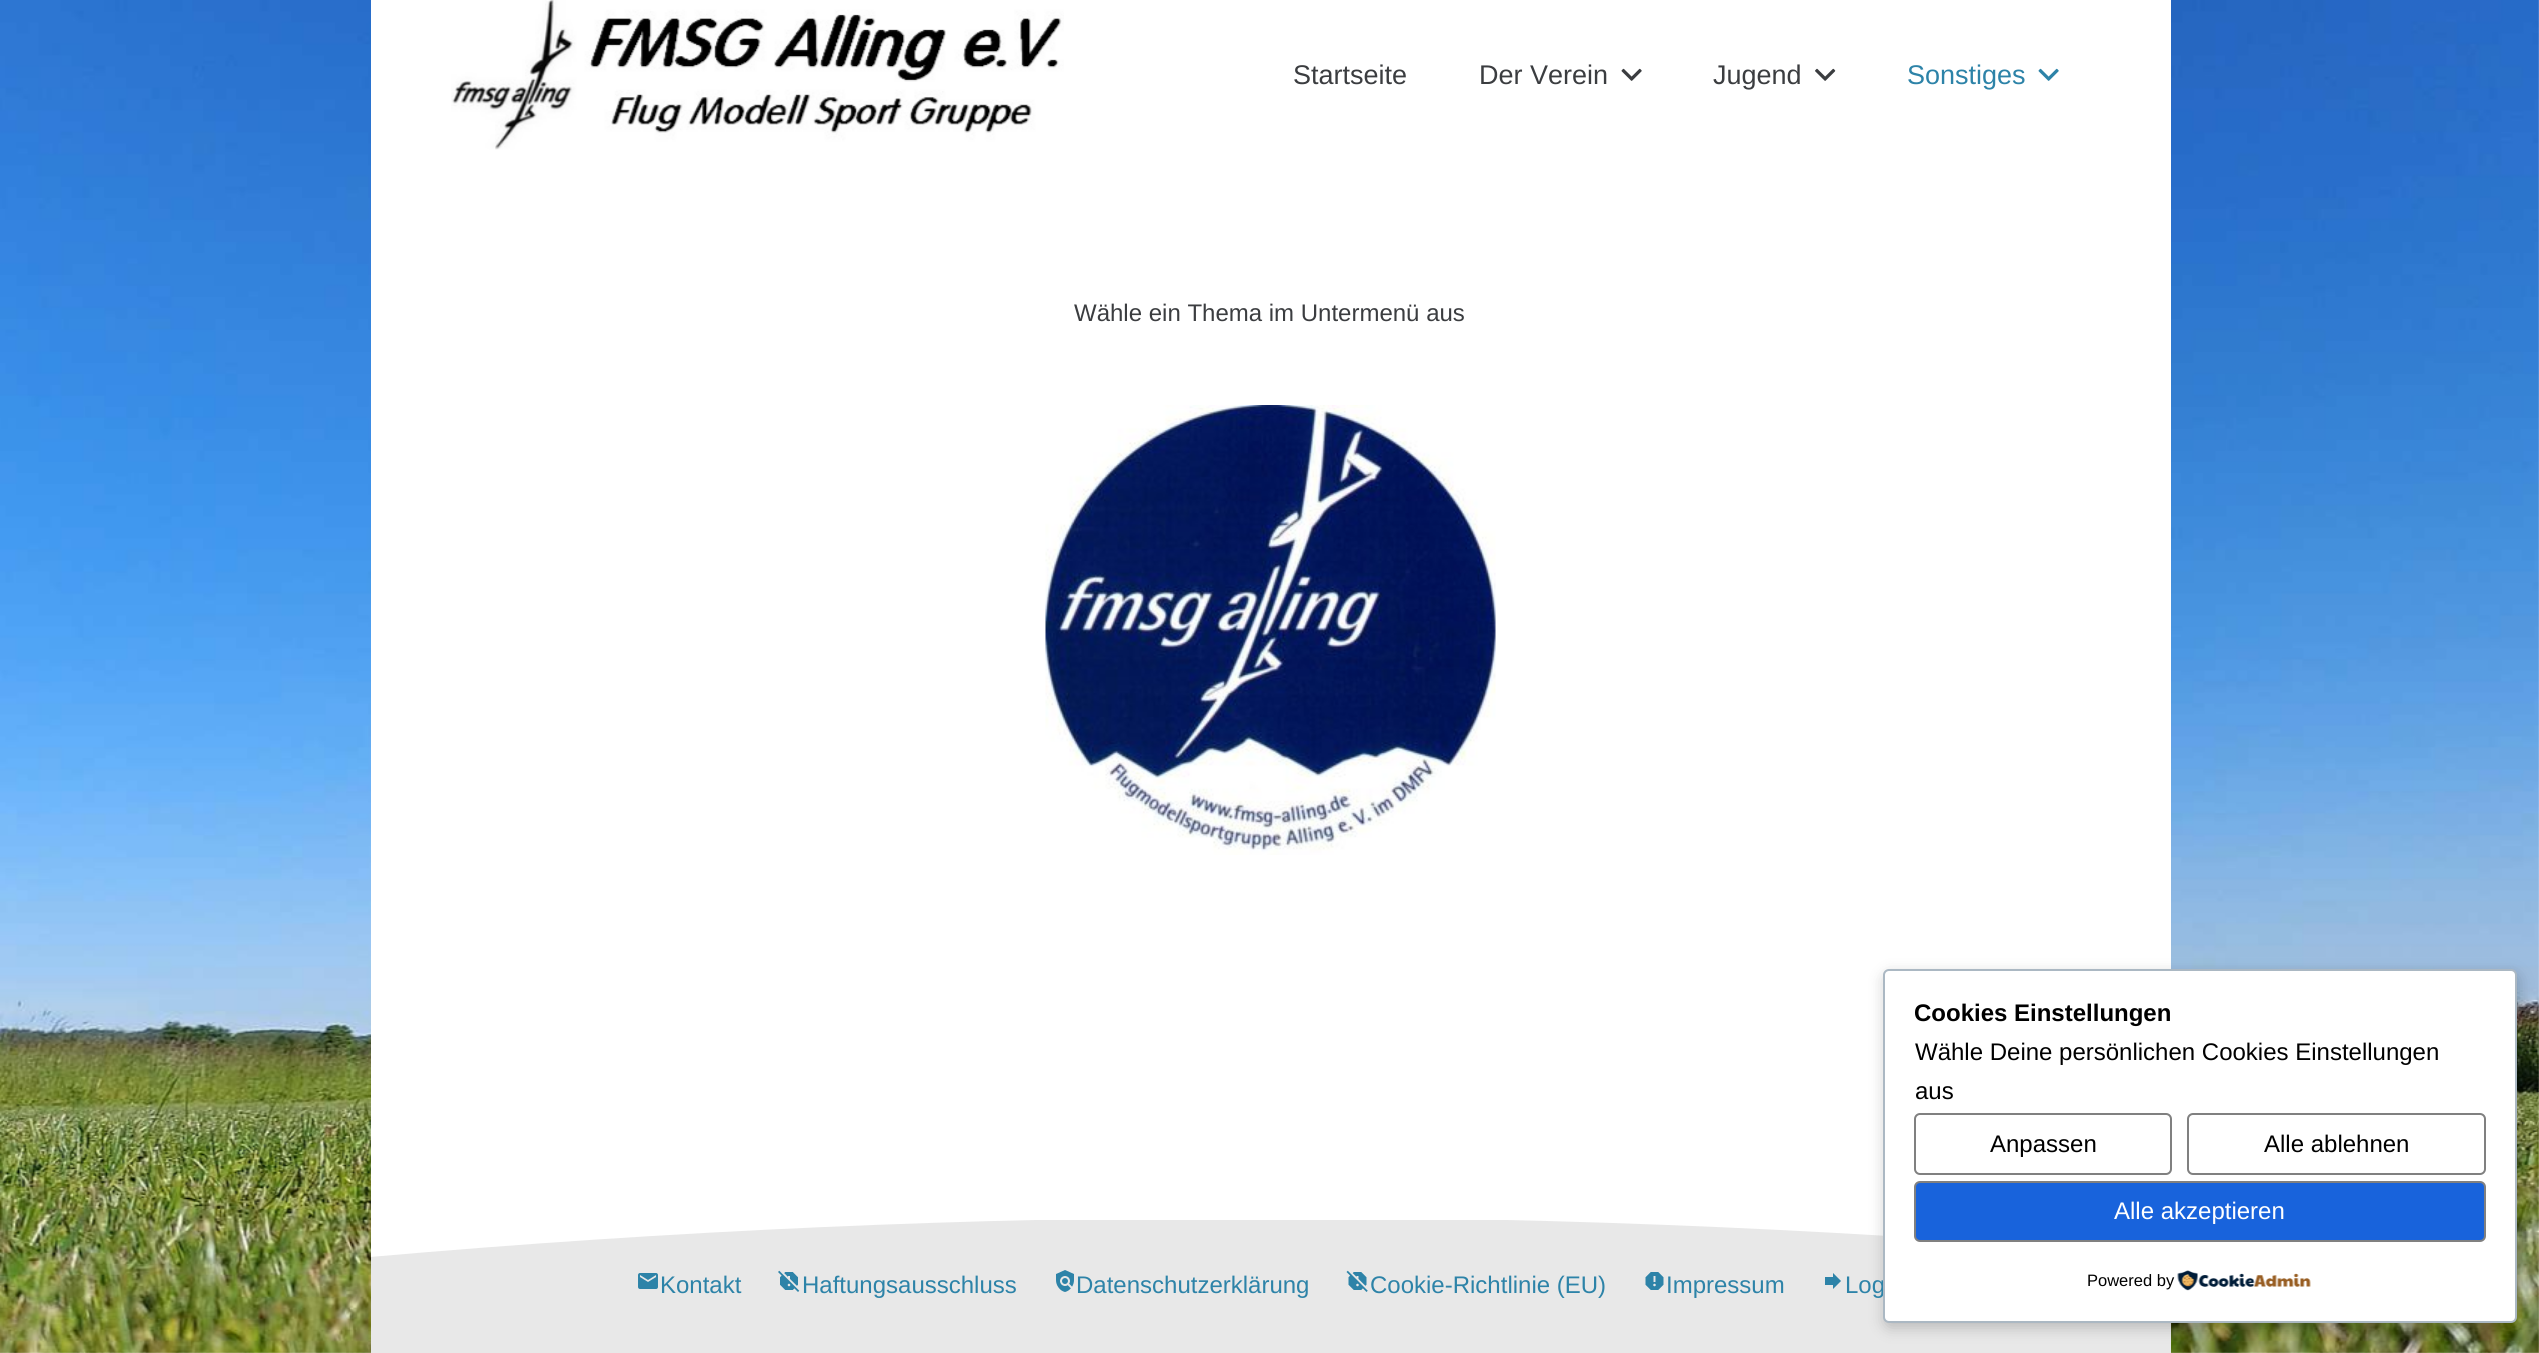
#include <cairo/cairo.h>
#include <math.h>
#include <stddef.h>

static cairo_t *cr;

static void use_color(int r, int g, int b) {
  cairo_set_source_rgb(cr, r / 255.0, g / 255.0, b / 255.0);
}

static void text(double x, double y, const char *s, const char *family, double size, int italic, int bold, int r, int g, int b) {
  cairo_select_font_face(cr, family, italic ? CAIRO_FONT_SLANT_ITALIC : CAIRO_FONT_SLANT_NORMAL,
    bold ? CAIRO_FONT_WEIGHT_BOLD : CAIRO_FONT_WEIGHT_NORMAL);
  cairo_set_font_size(cr, size);
  use_color(r, g, b);
  cairo_move_to(cr, x, y);
  cairo_show_text(cr, s);
}

static void box(double x, double y, double w, double h, int r, int g, int b) {
  use_color(r, g, b);
  cairo_rectangle(cr, x, y, w, h);
  cairo_fill(cr);
}

static void round_rect(double x, double y, double w, double h, double r) {
  cairo_new_sub_path(cr);
  cairo_arc(cr, x + w - r, y + h - r, r, 0, M_PI / 2);
  cairo_arc(cr, x + r, y + h - r, r, M_PI / 2, M_PI);
  cairo_arc(cr, x + r, y + r, r, M_PI, 1.5 * M_PI);
  cairo_arc(cr, x + w - r, y + r, r, 1.5 * M_PI, 2 * M_PI);
  cairo_close_path(cr);
}

static void shadow(double x, double y, double w, double h, double r, double blur, double alpha) {
  cairo_push_group_with_content(cr, CAIRO_CONTENT_ALPHA);
  cairo_set_operator(cr, CAIRO_OPERATOR_SOURCE);
  for (int i = 15; i >= -15 && fmin(w, h) + blur * i / 3 > 0; i -= 2) {
    double e = blur * i / 6;
    cairo_set_source_rgba(cr, 0, 0, 0, alpha * erfc((i - 1) / 8.5) / 2);
    round_rect(x - e, y - e, w + 2 * e, h + 2 * e, fmax(0, fmin(r + e + blur * .6, fmin(w, h) / 2 + e)));
    cairo_fill(cr);
  }
  cairo_pattern_t *soft = cairo_pop_group(cr);
  cairo_mask(cr, soft);
  cairo_pattern_destroy(soft);
}

static void picture(const char *path, double x, double y, double w, double h) {
  cairo_surface_t *image = cairo_image_surface_create_from_png(path);
  cairo_save(cr);
  cairo_set_source_surface(cr, image, x, y);
  cairo_rectangle(cr, x, y, w, h);
  cairo_fill(cr);
  cairo_restore(cr);
  cairo_surface_destroy(image);
}

static void draw(void) {
  use_color(255, 255, 255);
  cairo_paint(cr);
  picture("img_01.png", 0, 0, 2539, 1353);
  box(371, 1220, 1800, 133, 232, 232, 232);
  cairo_save(cr);
  cairo_rectangle(cr, 371, 1218, 1800, 39);
  cairo_clip(cr);
  use_color(255, 255, 255);
  cairo_new_path(cr);
  cairo_move_to(cr, 2170, 1216);
  cairo_line_to(cr, 2170, 1257);
  cairo_curve_to(cr, 1571, 1204, 970, 1204, 370, 1257);
  cairo_line_to(cr, 370, 1216);
  cairo_close_path(cr);
  cairo_fill(cr);
  cairo_restore(cr);
  box(371, 0, 1800, 1220, 255, 255, 255);
  picture("img_02.png", 451, 0, 613, 150);
  picture("img_03.png", 1621, 68, 21, 13);
  picture("img_04.png", 1815, 68, 21, 13);
  picture("img_05.png", 2038, 68, 21, 13);
  picture("img_06.png", 1045, 405, 451, 450);
  picture("img_07.png", 638, 1273, 20, 16);
  picture("img_08.png", 778, 1270, 22, 22);
  picture("img_09.png", 1056, 1270, 18, 22);
  picture("img_10.png", 1346, 1270, 22, 22);
  picture("img_11.png", 1645, 1272, 19, 18);
  picture("img_12.png", 1825, 1273, 16, 16);
  use_color(0, 0, 0);
  shadow(1884, 974, 635, 354, 6, 7.5, 0.2);
  text(1293, 84, "Startseite", "Liberation Sans", 27, 0, 0, 59, 61, 64);
  text(1479, 84, "Der Verein", "Liberation Sans", 27, 0, 0, 59, 61, 64);
  text(1713, 84, "Jugend", "Liberation Sans", 27, 0, 0, 59, 61, 64);
  text(1907, 84, "Sonstiges", "Liberation Sans", 27, 0, 0, 45, 131, 168);
  text(1074, 321, "Wähle ein Thema im Untermenü aus", "Liberation Sans", 24, 0, 0, 59, 61, 64);
  text(660, 1293, "Kontakt", "Liberation Sans", 24, 0, 0, 45, 131, 168);
  text(802, 1293, "Haftungsausschluss", "Liberation Sans", 24, 0, 0, 45, 131, 168);
  text(1076, 1293, "Datenschutzerklärung", "Liberation Sans", 24, 0, 0, 45, 131, 168);
  text(1370, 1293, "Cookie-Richtlinie (EU)", "Liberation Sans", 24, 0, 0, 45, 131, 168);
  text(1666, 1293, "Impressum", "Liberation Sans", 24, 0, 0, 45, 131, 168);
  text(1845, 1293, "Log", "Liberation Sans", 24, 0, 0, 45, 131, 168);
  use_color(255, 255, 255);
  round_rect(1884, 970, 632, 352, 5);
  cairo_fill_preserve(cr);
  use_color(171, 184, 195);
  cairo_stroke(cr);
  text(1914, 1021, "Cookies Einstellungen", "Liberation Sans", 24, 0, 1, 0, 0, 0);
  text(1915, 1060, "Wähle Deine persönlichen Cookies Einstellungen", "Liberation Sans", 24, 0, 0, 0, 0, 0);
  text(1915, 1099, "aus", "Liberation Sans", 24, 0, 0, 0, 0, 0);
  round_rect(1915, 1114, 256, 60, 5);
  use_color(128, 128, 128);
  cairo_stroke(cr);
  text(1990, 1152, "Anpassen", "Liberation Sans", 24, 0, 0, 0, 0, 0);
  round_rect(2188, 1114, 297, 60, 5);
  use_color(128, 128, 128);
  cairo_stroke(cr);
  text(2264, 1152, "Alle ablehnen", "Liberation Sans", 24, 0, 0, 0, 0, 0);
  use_color(24, 99, 220);
  round_rect(1915, 1182, 570, 59, 5);
  cairo_fill_preserve(cr);
  use_color(128, 128, 128);
  cairo_stroke(cr);
  text(2114, 1219, "Alle akzeptieren", "Liberation Sans", 24, 0, 0, 255, 255, 255);
  text(2087, 1286, "Powered by", "Liberation Sans", 16.5, 0, 0, 0, 0, 0);
  picture("img_13.png", 2177, 1270, 134, 21);
}

int main(void) {
  cairo_surface_t *surface = cairo_image_surface_create(CAIRO_FORMAT_RGB24, 2539, 1353);
  cr = cairo_create(surface);
  cairo_font_options_t *options = cairo_font_options_create();
  cairo_font_options_set_hint_metrics(options, CAIRO_HINT_METRICS_OFF);
  cairo_font_options_set_hint_style(options, CAIRO_HINT_STYLE_NONE);
  cairo_set_font_options(cr, options);
  cairo_set_miter_limit(cr, 4);
  draw();
  cairo_surface_write_to_png(surface, "out.png");
  cairo_font_options_destroy(options);
  cairo_destroy(cr);
  cairo_surface_destroy(surface);
  return 0;
}
